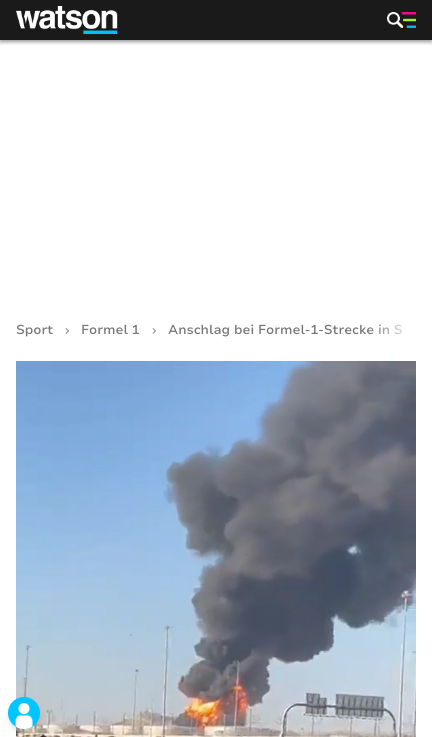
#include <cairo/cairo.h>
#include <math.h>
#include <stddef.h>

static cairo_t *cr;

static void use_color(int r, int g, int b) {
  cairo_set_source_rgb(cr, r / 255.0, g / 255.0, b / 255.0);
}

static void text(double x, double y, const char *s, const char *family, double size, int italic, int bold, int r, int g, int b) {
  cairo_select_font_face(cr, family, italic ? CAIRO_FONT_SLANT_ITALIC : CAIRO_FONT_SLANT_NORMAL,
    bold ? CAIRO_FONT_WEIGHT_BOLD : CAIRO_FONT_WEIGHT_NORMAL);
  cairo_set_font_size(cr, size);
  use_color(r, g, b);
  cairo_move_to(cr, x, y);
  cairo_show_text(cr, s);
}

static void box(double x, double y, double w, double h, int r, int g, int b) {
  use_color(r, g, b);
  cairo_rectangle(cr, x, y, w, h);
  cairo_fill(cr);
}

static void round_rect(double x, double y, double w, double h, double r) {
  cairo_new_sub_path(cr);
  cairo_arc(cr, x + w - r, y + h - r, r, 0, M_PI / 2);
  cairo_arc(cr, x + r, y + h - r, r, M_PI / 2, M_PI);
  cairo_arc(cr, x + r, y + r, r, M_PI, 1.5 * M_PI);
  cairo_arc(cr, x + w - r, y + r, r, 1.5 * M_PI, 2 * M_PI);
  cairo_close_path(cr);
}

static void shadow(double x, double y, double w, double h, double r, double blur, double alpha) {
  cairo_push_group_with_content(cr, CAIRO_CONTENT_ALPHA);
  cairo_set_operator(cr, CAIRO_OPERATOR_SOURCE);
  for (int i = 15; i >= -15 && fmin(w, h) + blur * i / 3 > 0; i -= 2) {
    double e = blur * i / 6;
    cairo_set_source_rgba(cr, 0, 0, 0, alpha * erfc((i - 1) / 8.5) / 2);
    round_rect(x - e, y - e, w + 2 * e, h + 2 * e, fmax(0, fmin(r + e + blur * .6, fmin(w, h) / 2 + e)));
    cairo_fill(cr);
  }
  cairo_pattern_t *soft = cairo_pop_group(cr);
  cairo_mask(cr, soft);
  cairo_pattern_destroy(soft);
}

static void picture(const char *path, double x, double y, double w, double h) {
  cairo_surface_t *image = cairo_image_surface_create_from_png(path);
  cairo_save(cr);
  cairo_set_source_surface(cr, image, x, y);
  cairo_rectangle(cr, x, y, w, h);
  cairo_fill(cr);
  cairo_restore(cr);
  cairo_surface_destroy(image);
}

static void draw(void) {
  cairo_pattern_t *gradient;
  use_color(255, 255, 255);
  cairo_paint(cr);
  box(0, 0, 432, 40, 26, 26, 26);
  cairo_save(cr);
  cairo_rectangle(cr, 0, 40, 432, 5);
  cairo_clip(cr);
  use_color(0, 0, 0);
  shadow(0, 2, 432, 40, 0, 2, 0.4);
  cairo_restore(cr);
  picture("img_01.png", 16, 6, 102, 28);
  picture("img_02.png", 387, 12, 29, 16);
  picture("img_03.png", 65, 328, 4, 6);
  picture("img_03.png", 152, 328, 4, 6);
  picture("img_04.png", 16, 361, 400, 376);
  use_color(0, 0, 0);
  shadow(10, 701, 28, 28, 14, 2, 0.1);
  shadow(9, 702, 30, 30, 15, 3, 0.1);
  use_color(0, 198, 255);
  cairo_arc(cr, 24, 713, 16, 0, 2 * M_PI);
  cairo_fill(cr);
  picture("img_05.png", 15, 703, 18, 26);
  text(16, 334, "Sport", "Nunito Sans SemiBold", 13, 0, 0, 119, 119, 119);
  text(81, 334, "Formel 1", "Nunito Sans SemiBold", 13, 0, 0, 119, 119, 119);
  text(168, 334, "Anschlag bei Formel-1-Strecke in S", "Nunito Sans SemiBold", 13, 0, 0, 119, 119, 119);
  gradient = cairo_pattern_create_linear(368, 331, 416, 331);
  cairo_pattern_add_color_stop_rgba(gradient, 0, 1, 1, 1, 0);
  cairo_pattern_add_color_stop_rgba(gradient, 1, 1, 1, 1, 1);
  cairo_set_source(cr, gradient);
  cairo_pattern_destroy(gradient);
  cairo_rectangle(cr, 369, 324, 33, 11);
  cairo_fill(cr);
}

int main(void) {
  cairo_surface_t *surface = cairo_image_surface_create(CAIRO_FORMAT_RGB24, 432, 737);
  cr = cairo_create(surface);
  cairo_font_options_t *options = cairo_font_options_create();
  cairo_font_options_set_hint_metrics(options, CAIRO_HINT_METRICS_OFF);
  cairo_font_options_set_hint_style(options, CAIRO_HINT_STYLE_NONE);
  cairo_set_font_options(cr, options);
  cairo_set_miter_limit(cr, 4);
  draw();
  cairo_surface_write_to_png(surface, "out.png");
  cairo_font_options_destroy(options);
  cairo_destroy(cr);
  cairo_surface_destroy(surface);
  return 0;
}
